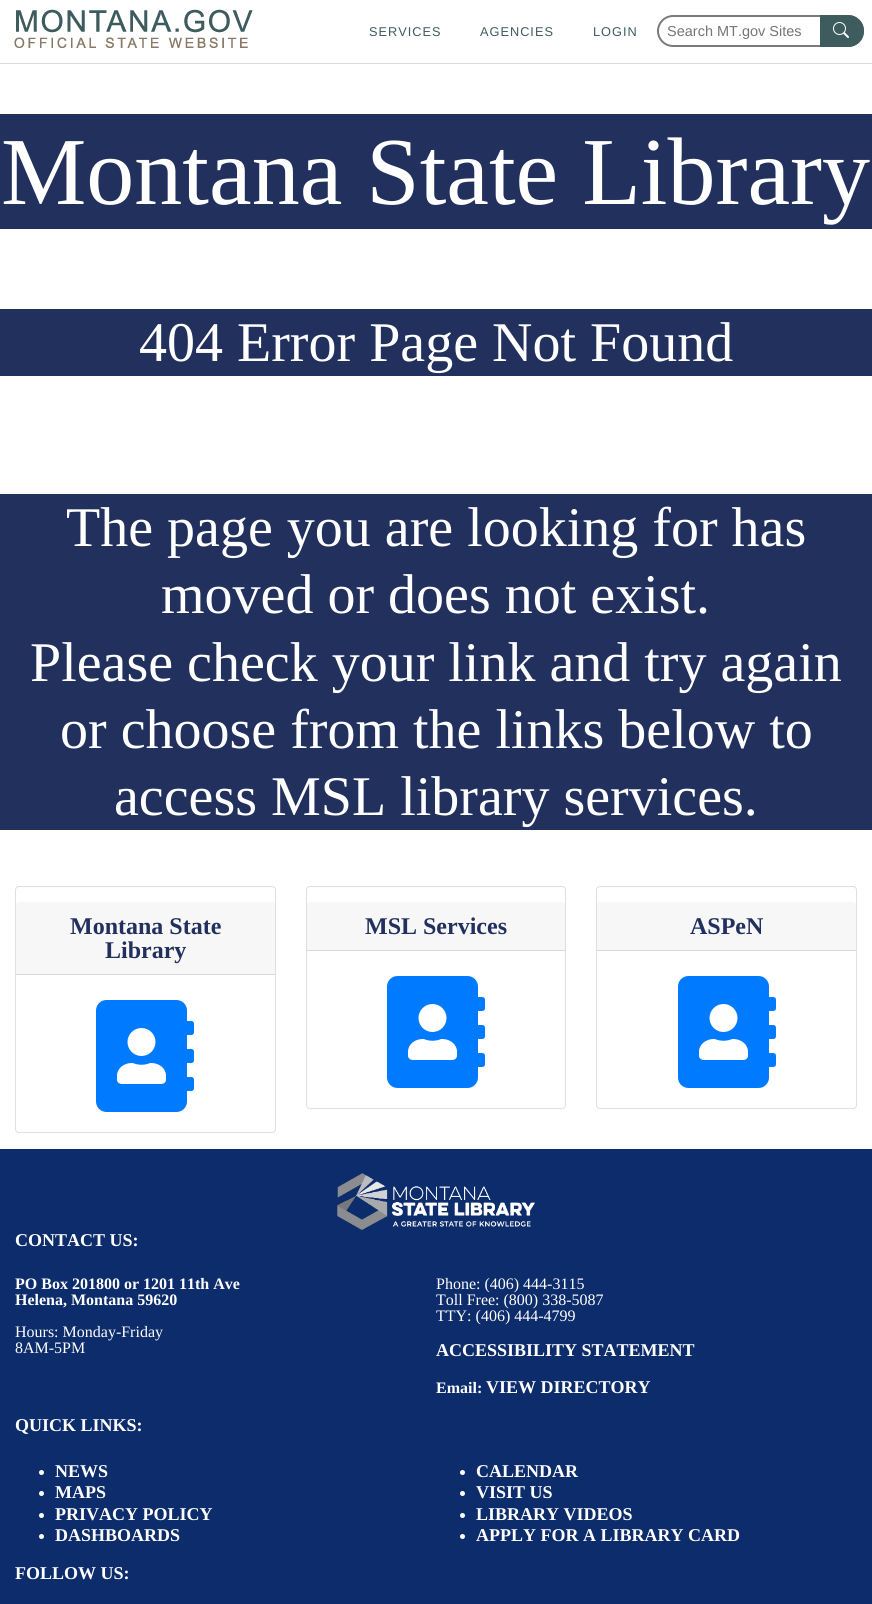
#include <cairo/cairo.h>
#include <math.h>
#include <stddef.h>

static cairo_t *cr;

static void use_color(int r, int g, int b) {
  cairo_set_source_rgb(cr, r / 255.0, g / 255.0, b / 255.0);
}

static void text(double x, double y, const char *s, const char *family, double size, int italic, int bold, int r, int g, int b) {
  cairo_select_font_face(cr, family, italic ? CAIRO_FONT_SLANT_ITALIC : CAIRO_FONT_SLANT_NORMAL,
    bold ? CAIRO_FONT_WEIGHT_BOLD : CAIRO_FONT_WEIGHT_NORMAL);
  cairo_set_font_size(cr, size);
  use_color(r, g, b);
  cairo_move_to(cr, x, y);
  cairo_show_text(cr, s);
}

static void spaced_text(double x, double y, const char *s, double letter, double word) {
  cairo_move_to(cr, x, y);
  while (*s) {
    char ch[5] = {0};
    int n = 0;
    do ch[n++] = *s++; while ((*s & 0xC0) == 0x80);
    cairo_show_text(cr, ch);
    cairo_rel_move_to(cr, letter + word * (*ch == ' '), 0);
  }
}

static void box(double x, double y, double w, double h, int r, int g, int b) {
  use_color(r, g, b);
  cairo_rectangle(cr, x, y, w, h);
  cairo_fill(cr);
}

static void round_rect(double x, double y, double w, double h, double r) {
  cairo_new_sub_path(cr);
  cairo_arc(cr, x + w - r, y + h - r, r, 0, M_PI / 2);
  cairo_arc(cr, x + r, y + h - r, r, M_PI / 2, M_PI);
  cairo_arc(cr, x + r, y + r, r, M_PI, 1.5 * M_PI);
  cairo_arc(cr, x + w - r, y + r, r, 1.5 * M_PI, 2 * M_PI);
  cairo_close_path(cr);
}

static void picture(const char *path, double x, double y, double w, double h) {
  cairo_surface_t *image = cairo_image_surface_create_from_png(path);
  cairo_save(cr);
  cairo_set_source_surface(cr, image, x, y);
  cairo_rectangle(cr, x, y, w, h);
  cairo_fill(cr);
  cairo_restore(cr);
  cairo_surface_destroy(image);
}

static void draw(void) {
  use_color(255, 255, 255);
  cairo_paint(cr);
  box(0, 63, 872, 1, 219, 220, 222);
  picture("img_01.png", 14, 9, 239, 39);
  round_rect(658, 16, 205, 30, 15);
  use_color(123, 123, 123);
  cairo_stroke(cr);
  use_color(62, 92, 94);
  cairo_new_path(cr);
  cairo_move_to(cr, 820, 15);
  cairo_line_to(cr, 848, 15);
  cairo_curve_to(cr, 857, 15, 864, 22, 864, 31);
  cairo_curve_to(cr, 864, 40, 857, 47, 848, 47);
  cairo_line_to(cr, 820, 47);
  cairo_close_path(cr);
  cairo_fill(cr);
  picture("img_02.png", 833, 22, 16, 16);
  box(0, 114, 872, 115, 33, 48, 93);
  box(0, 309, 872, 67, 33, 48, 93);
  box(0, 494, 872, 336, 33, 48, 93);
  round_rect(15.5, 886.5, 260, 246, 3.5);
  use_color(223, 223, 223);
  cairo_set_line_width(cr, 1);
  cairo_stroke(cr);
  use_color(247, 247, 247);
  cairo_new_path(cr);
  cairo_move_to(cr, 19, 902);
  cairo_line_to(cr, 272, 902);
  cairo_curve_to(cr, 273.5, 902, 275, 903.5, 275, 905);
  cairo_line_to(cr, 275, 975);
  cairo_line_to(cr, 16, 975);
  cairo_line_to(cr, 16, 905);
  cairo_curve_to(cr, 16, 903.5, 17.5, 902, 19, 902);
  cairo_close_path(cr);
  cairo_fill(cr);
  box(16, 974, 259, 1, 216, 216, 216);
  picture("img_03.png", 96, 1000, 98, 112);
  round_rect(306.5, 886.5, 259, 222, 3.5);
  use_color(223, 223, 223);
  cairo_stroke(cr);
  use_color(247, 247, 247);
  cairo_new_path(cr);
  cairo_move_to(cr, 310, 902);
  cairo_line_to(cr, 562, 902);
  cairo_curve_to(cr, 563.5, 902, 565, 903.5, 565, 905);
  cairo_line_to(cr, 565, 951);
  cairo_line_to(cr, 307, 951);
  cairo_line_to(cr, 307, 905);
  cairo_curve_to(cr, 307, 903.5, 308.5, 902, 310, 902);
  cairo_close_path(cr);
  cairo_fill(cr);
  box(307, 950, 258, 1, 216, 216, 216);
  picture("img_03.png", 387, 976, 98, 112);
  round_rect(596.5, 886.5, 260, 222, 3.5);
  use_color(223, 223, 223);
  cairo_stroke(cr);
  use_color(247, 247, 247);
  cairo_new_path(cr);
  cairo_move_to(cr, 600, 902);
  cairo_line_to(cr, 853, 902);
  cairo_curve_to(cr, 854.5, 902, 856, 903.5, 856, 905);
  cairo_line_to(cr, 856, 951);
  cairo_line_to(cr, 597, 951);
  cairo_line_to(cr, 597, 905);
  cairo_curve_to(cr, 597, 903.5, 598.5, 902, 600, 902);
  cairo_close_path(cr);
  cairo_fill(cr);
  box(597, 950, 259, 1, 216, 216, 216);
  picture("img_03.png", 678, 976, 98, 112);
  box(0, 1149, 872, 455, 13, 44, 107);
  picture("img_04.png", 337, 1173, 198, 57);
  use_color(255, 255, 255);
  cairo_arc(cr, 41.5, 1472.5, 2.5, 0, 2 * M_PI);
  cairo_fill(cr);
  cairo_arc(cr, 41.5, 1493.5, 2.5, 0, 2 * M_PI);
  cairo_fill(cr);
  cairo_arc(cr, 41.5, 1515.5, 2.5, 0, 2 * M_PI);
  cairo_fill(cr);
  cairo_arc(cr, 41.5, 1536.5, 2.5, 0, 2 * M_PI);
  cairo_fill(cr);
  cairo_arc(cr, 462.5, 1472.5, 2.5, 0, 2 * M_PI);
  cairo_fill(cr);
  cairo_arc(cr, 462.5, 1493.5, 2.5, 0, 2 * M_PI);
  cairo_fill(cr);
  cairo_arc(cr, 462.5, 1515.5, 2.5, 0, 2 * M_PI);
  cairo_fill(cr);
  cairo_arc(cr, 462.5, 1536.5, 2.5, 0, 2 * M_PI);
  cairo_fill(cr);
  cairo_select_font_face(cr, "Liberation Sans", CAIRO_FONT_SLANT_NORMAL, CAIRO_FONT_WEIGHT_NORMAL);
  cairo_set_font_size(cr, 12.75);
  use_color(62, 91, 93);
  spaced_text(369, 36, "SERVICES", 1, 0);
  spaced_text(480, 36, "AGENCIES", 1, 0);
  spaced_text(593, 36, "LOGIN", 1, 0);
  text(667, 36, "Search MT.gov Sites", "Liberation Sans", 14.5, 0, 0, 117, 117, 117);
  text(1, 204, "Montana State Library", "Liberation Serif", 96, 0, 0, 255, 255, 255);
  text(139, 361, "404 Error Page Not Found", "Liberation Serif", 56, 0, 0, 255, 255, 255);
  text(66, 546, "The page you are looking for has", "Liberation Serif", 56, 0, 0, 255, 255, 255);
  text(161, 613, "moved or does not exist.", "Liberation Serif", 56, 0, 0, 255, 255, 255);
  text(30, 681, "Please check your link and try again", "Liberation Serif", 56, 0, 0, 255, 255, 255);
  text(60, 748, "or choose from the links below to", "Liberation Serif", 56, 0, 0, 255, 255, 255);
  text(114, 815, "access MSL library services.", "Liberation Serif", 56, 0, 0, 255, 255, 255);
  text(70, 934, "Montana State", "Liberation Serif", 24, 0, 1, 33, 48, 93);
  text(105, 958, "Library", "Liberation Serif", 24, 0, 1, 33, 48, 93);
  text(365, 934, "MSL Services", "Liberation Serif", 24, 0, 1, 33, 48, 93);
  text(690, 934, "ASPeN", "Liberation Serif", 24, 0, 1, 33, 48, 93);
  text(15, 1246, "CONTACT US:", "Liberation Serif", 18, 0, 1, 255, 255, 255);
  text(15, 1289, "PO Box 201800 or 1201 11th Ave", "Liberation Serif", 16, 0, 1, 255, 255, 255);
  text(15, 1305, "Helena, Montana 59620", "Liberation Serif", 16, 0, 1, 255, 255, 255);
  text(15, 1337, "Hours: Monday-Friday", "Liberation Serif", 16, 0, 0, 255, 255, 255);
  text(15, 1353, "8AM-5PM", "Liberation Serif", 16, 0, 0, 255, 255, 255);
  text(436, 1289, "Phone: (406) 444-3115", "Liberation Serif", 16, 0, 0, 255, 255, 255);
  text(436, 1305, "Toll Free: (800) 338-5087", "Liberation Serif", 16, 0, 0, 255, 255, 255);
  text(436, 1321, "TTY: (406) 444-4799", "Liberation Serif", 16, 0, 0, 255, 255, 255);
  text(436, 1356, "ACCESSIBILITY STATEMENT", "Liberation Serif", 18, 0, 1, 255, 255, 255);
  text(436, 1393, "Email:", "Liberation Serif", 16, 0, 1, 255, 255, 255);
  text(486, 1393, "VIEW DIRECTORY", "Liberation Serif", 18, 0, 1, 255, 255, 255);
  text(15, 1431, "QUICK LINKS:", "Liberation Serif", 18, 0, 1, 255, 255, 255);
  text(55, 1477, "NEWS", "Liberation Serif", 18, 0, 1, 255, 255, 255);
  text(55, 1498, "MAPS", "Liberation Serif", 18, 0, 1, 255, 255, 255);
  text(55, 1520, "PRIVACY POLICY", "Liberation Serif", 18, 0, 1, 255, 255, 255);
  text(55, 1541, "DASHBOARDS", "Liberation Serif", 18, 0, 1, 255, 255, 255);
  text(476, 1477, "CALENDAR", "Liberation Serif", 18, 0, 1, 255, 255, 255);
  text(476, 1498, "VISIT US", "Liberation Serif", 18, 0, 1, 255, 255, 255);
  text(476, 1520, "LIBRARY VIDEOS", "Liberation Serif", 18, 0, 1, 255, 255, 255);
  text(476, 1541, "APPLY FOR A LIBRARY CARD", "Liberation Serif", 18, 0, 1, 255, 255, 255);
  text(15, 1579, "FOLLOW US:", "Liberation Serif", 18, 0, 1, 255, 255, 255);
}

int main(void) {
  cairo_surface_t *surface = cairo_image_surface_create(CAIRO_FORMAT_RGB24, 872, 1604);
  cr = cairo_create(surface);
  cairo_font_options_t *options = cairo_font_options_create();
  cairo_font_options_set_hint_metrics(options, CAIRO_HINT_METRICS_OFF);
  cairo_font_options_set_hint_style(options, CAIRO_HINT_STYLE_NONE);
  cairo_set_font_options(cr, options);
  cairo_set_miter_limit(cr, 4);
  draw();
  cairo_surface_write_to_png(surface, "out.png");
  cairo_font_options_destroy(options);
  cairo_destroy(cr);
  cairo_surface_destroy(surface);
  return 0;
}
